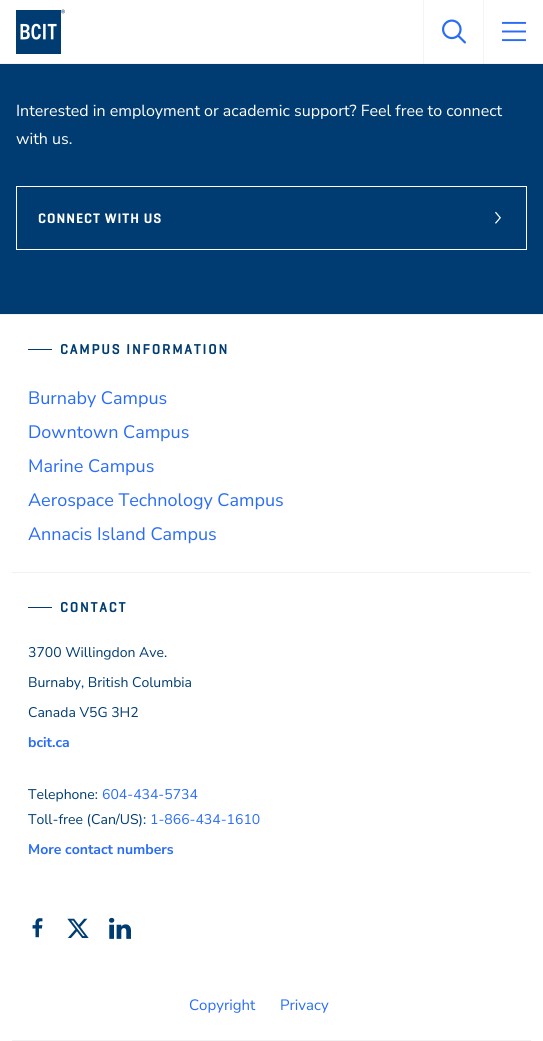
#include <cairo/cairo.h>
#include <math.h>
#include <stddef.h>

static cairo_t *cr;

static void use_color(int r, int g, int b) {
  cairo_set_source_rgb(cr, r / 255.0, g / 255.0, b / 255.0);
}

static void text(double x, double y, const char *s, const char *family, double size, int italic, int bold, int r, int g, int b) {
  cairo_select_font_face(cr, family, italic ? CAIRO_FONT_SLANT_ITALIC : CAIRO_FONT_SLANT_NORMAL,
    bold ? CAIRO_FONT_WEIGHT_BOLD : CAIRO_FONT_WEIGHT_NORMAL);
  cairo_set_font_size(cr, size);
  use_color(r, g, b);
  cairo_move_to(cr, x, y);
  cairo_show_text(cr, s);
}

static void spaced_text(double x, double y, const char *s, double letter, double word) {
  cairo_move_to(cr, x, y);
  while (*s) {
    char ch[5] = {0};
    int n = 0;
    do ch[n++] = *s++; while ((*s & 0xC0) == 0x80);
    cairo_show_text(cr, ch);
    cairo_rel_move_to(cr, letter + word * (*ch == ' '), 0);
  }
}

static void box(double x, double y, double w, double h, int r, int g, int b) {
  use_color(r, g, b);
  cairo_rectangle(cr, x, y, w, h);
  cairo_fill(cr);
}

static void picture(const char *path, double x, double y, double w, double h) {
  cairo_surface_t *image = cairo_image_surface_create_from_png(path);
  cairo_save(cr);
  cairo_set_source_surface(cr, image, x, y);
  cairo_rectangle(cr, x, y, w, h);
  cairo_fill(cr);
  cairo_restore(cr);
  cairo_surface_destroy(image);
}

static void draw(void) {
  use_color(255, 255, 255);
  cairo_paint(cr);
  picture("img_01.png", 16, 9, 49, 45);
  box(423, 0, 1, 64, 244, 244, 244);
  picture("img_02.png", 442, 19, 24, 25);
  box(483, 0, 1, 64, 244, 244, 244);
  picture("img_03.png", 502, 21, 24, 21);
  cairo_set_source_rgba(cr, 0.91, 0.91, 0.91, 0.5);
  cairo_rectangle(cr, 0, 63, 543, 1);
  cairo_fill(cr);
  box(0, 314, 543, 1, 242, 242, 242);
  box(0, 64, 543, 250, 0, 60, 113);
  cairo_rectangle(cr, 16.5, 186.5, 510, 63);
  use_color(255, 255, 255);
  cairo_set_line_width(cr, 1);
  cairo_stroke(cr);
  picture("img_04.png", 495, 211, 6, 13);
  box(12, 572, 519, 1, 242, 242, 242);
  box(28, 349, 24, 1, 0, 60, 113);
  box(12, 1040, 519, 1, 242, 242, 242);
  box(28, 607, 24, 1, 0, 60, 113);
  picture("img_05.png", 32, 918, 11, 20);
  picture("img_06.png", 67, 918, 22, 20);
  picture("img_07.png", 109, 917, 22, 22);
  text(16, 116, "Interested in employment or academic support? Feel free to connect", "Nunito Sans", 16, 0, 0, 255, 255, 255);
  text(16, 144, "with us.", "Nunito Sans", 16, 0, 0, 255, 255, 255);
  cairo_select_font_face(cr, "geo SemiBold", CAIRO_FONT_SLANT_NORMAL, CAIRO_FONT_WEIGHT_NORMAL);
  cairo_set_font_size(cr, 14);
  spaced_text(38, 223, "CONNECT WITH US", 1, 0);
  cairo_select_font_face(cr, "geo", CAIRO_FONT_SLANT_NORMAL, CAIRO_FONT_WEIGHT_BOLD);
  use_color(0, 60, 113);
  spaced_text(60, 354, "CAMPUS INFORMATION", 1.9, 0);
  text(28, 404, "Burnaby Campus", "Nunito Sans", 18, 0, 0, 41, 108, 246);
  text(28, 438, "Downtown Campus", "Nunito Sans", 18, 0, 0, 41, 108, 246);
  text(28, 472, "Marine Campus", "Nunito Sans", 18, 0, 0, 41, 108, 246);
  text(28, 506, "Aerospace Technology Campus", "Nunito Sans", 18, 0, 0, 41, 108, 246);
  text(28, 540, "Annacis Island Campus", "Nunito Sans", 18, 0, 0, 41, 108, 246);
  cairo_select_font_face(cr, "geo", CAIRO_FONT_SLANT_NORMAL, CAIRO_FONT_WEIGHT_BOLD);
  cairo_set_font_size(cr, 14);
  use_color(0, 60, 113);
  spaced_text(60, 612, "CONTACT", 1.9, 0);
  text(28, 657, "3700 Willingdon Ave.", "Nunito Sans", 14, 0, 0, 0, 60, 113);
  text(28, 687, "Burnaby, British Columbia", "Nunito Sans", 14, 0, 0, 0, 60, 113);
  text(28, 717, "Canada V5G 3H2", "Nunito Sans", 14, 0, 0, 0, 60, 113);
  text(28, 747, "bcit.ca", "Nunito Sans", 14, 0, 1, 41, 108, 246);
  text(28, 799, "Telephone:", "Nunito Sans", 14, 0, 0, 0, 60, 113);
  text(102, 799, "604-434-5734", "Nunito Sans", 14, 0, 0, 41, 108, 246);
  text(28, 824, "Toll-free (Can/US):", "Nunito Sans", 14, 0, 0, 0, 60, 113);
  text(150, 824, "1-866-434-1610", "Nunito Sans", 14, 0, 0, 41, 108, 246);
  text(28, 854, "More contact numbers", "Nunito Sans", 14, 0, 1, 41, 108, 246);
  text(189, 1010, "Copyright", "Nunito Sans", 15, 0, 0, 41, 108, 246);
  text(280, 1010, "Privacy", "Nunito Sans", 15, 0, 0, 41, 108, 246);
}

int main(void) {
  cairo_surface_t *surface = cairo_image_surface_create(CAIRO_FORMAT_RGB24, 543, 1041);
  cr = cairo_create(surface);
  cairo_font_options_t *options = cairo_font_options_create();
  cairo_font_options_set_hint_metrics(options, CAIRO_HINT_METRICS_OFF);
  cairo_font_options_set_hint_style(options, CAIRO_HINT_STYLE_NONE);
  cairo_set_font_options(cr, options);
  cairo_set_miter_limit(cr, 4);
  draw();
  cairo_surface_write_to_png(surface, "out.png");
  cairo_font_options_destroy(options);
  cairo_destroy(cr);
  cairo_surface_destroy(surface);
  return 0;
}
